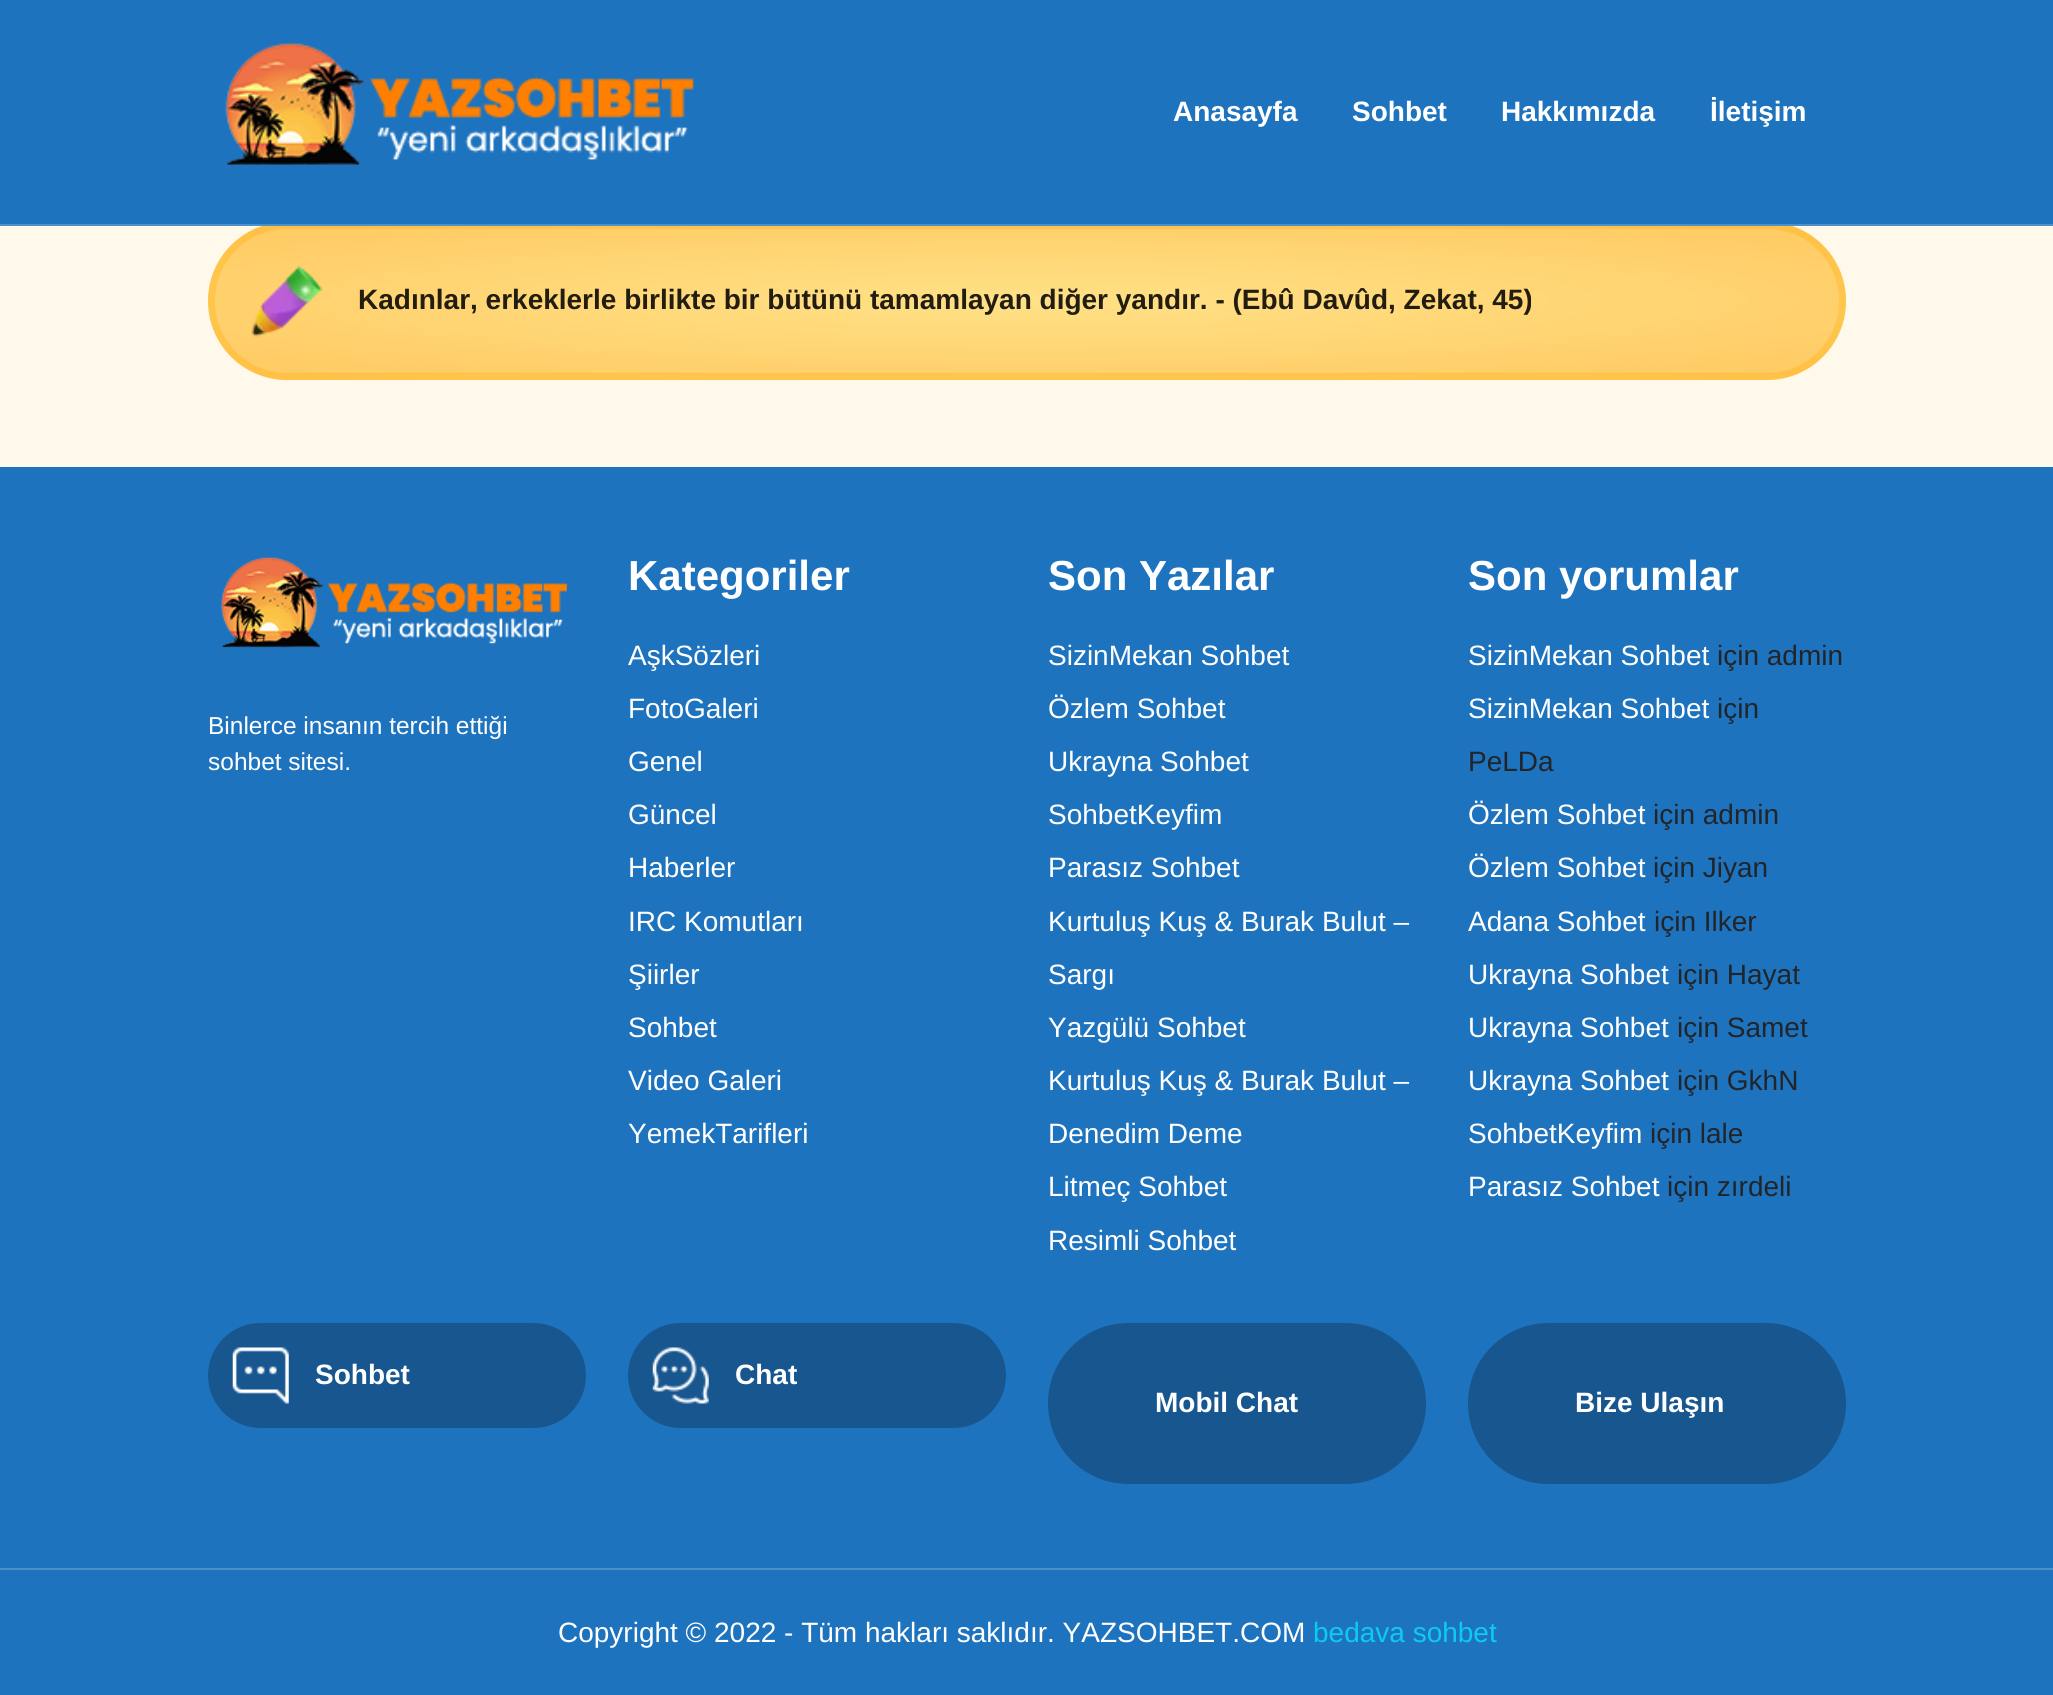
#include <cairo/cairo.h>
#include <math.h>
#include <stddef.h>

static cairo_t *cr;

static void use_color(int r, int g, int b) {
  cairo_set_source_rgb(cr, r / 255.0, g / 255.0, b / 255.0);
}

static void text(double x, double y, const char *s, const char *family, double size, int italic, int bold, int r, int g, int b) {
  cairo_select_font_face(cr, family, italic ? CAIRO_FONT_SLANT_ITALIC : CAIRO_FONT_SLANT_NORMAL,
    bold ? CAIRO_FONT_WEIGHT_BOLD : CAIRO_FONT_WEIGHT_NORMAL);
  cairo_set_font_size(cr, size);
  use_color(r, g, b);
  cairo_move_to(cr, x, y);
  cairo_show_text(cr, s);
}

static void box(double x, double y, double w, double h, int r, int g, int b) {
  use_color(r, g, b);
  cairo_rectangle(cr, x, y, w, h);
  cairo_fill(cr);
}

static void round_rect(double x, double y, double w, double h, double r) {
  cairo_new_sub_path(cr);
  cairo_arc(cr, x + w - r, y + h - r, r, 0, M_PI / 2);
  cairo_arc(cr, x + r, y + h - r, r, M_PI / 2, M_PI);
  cairo_arc(cr, x + r, y + r, r, M_PI, 1.5 * M_PI);
  cairo_arc(cr, x + w - r, y + r, r, 1.5 * M_PI, 2 * M_PI);
  cairo_close_path(cr);
}

static void picture(const char *path, double x, double y, double w, double h) {
  cairo_surface_t *image = cairo_image_surface_create_from_png(path);
  cairo_save(cr);
  cairo_set_source_surface(cr, image, x, y);
  cairo_rectangle(cr, x, y, w, h);
  cairo_fill(cr);
  cairo_restore(cr);
  cairo_surface_destroy(image);
}

static void draw(void) {
  cairo_pattern_t *gradient;
  use_color(254, 249, 235);
  cairo_paint(cr);
  cairo_save(cr);
  round_rect(208, 222, 1638, 158, 79);
  cairo_clip(cr);
  gradient = cairo_pattern_create_radial(0, 0, 0, 0, 0, 1);
  cairo_pattern_set_matrix(gradient, &(cairo_matrix_t){1.0 / 1148, 0, 0, 1.0 / 101, -1.0 * 1027 / 1148, -1.0 * 158 / 101});
  cairo_pattern_add_color_stop_rgba(gradient, 0, 1, 0.882, 0.529, 1);
  cairo_pattern_add_color_stop_rgba(gradient, 1, 1, 0.792, 0.384, 1);
  cairo_set_source(cr, gradient);
  cairo_pattern_destroy(gradient);
  cairo_rectangle(cr, 254, 226, 1546, 3);
  cairo_fill(cr);
  gradient = cairo_pattern_create_radial(0, 0, 0, 0, 0, 1);
  cairo_pattern_set_matrix(gradient, &(cairo_matrix_t){1.0 / 1148, 0, 0, 1.0 / 101, -1.0 * -597 / 1148, -1.0 * 301 / 101});
  cairo_pattern_add_color_stop_rgba(gradient, 0, 1, 0.882, 0.529, 1);
  cairo_pattern_add_color_stop_rgba(gradient, 1, 1, 0.792, 0.384, 1);
  cairo_set_source(cr, gradient);
  cairo_pattern_destroy(gradient);
  cairo_rectangle(cr, 208, 268, 7, 66);
  cairo_fill(cr);
  gradient = cairo_pattern_create_radial(0, 0, 0, 0, 0, 1);
  cairo_pattern_set_matrix(gradient, &(cairo_matrix_t){1.0 / 1148, 0, 0, 1.0 / 101, -1.0 * 1027 / 1148, -1.0 * 301 / 101});
  cairo_pattern_add_color_stop_rgba(gradient, 0, 1, 0.882, 0.529, 1);
  cairo_pattern_add_color_stop_rgba(gradient, 1, 1, 0.792, 0.384, 1);
  cairo_set_source(cr, gradient);
  cairo_pattern_destroy(gradient);
  cairo_rectangle(cr, 215, 229, 1624, 144);
  cairo_fill(cr);
  gradient = cairo_pattern_create_radial(0, 0, 0, 0, 0, 1);
  cairo_pattern_set_matrix(gradient, &(cairo_matrix_t){1.0 / 1148, 0, 0, 1.0 / 101, -1.0 * 2651 / 1148, -1.0 * 301 / 101});
  cairo_pattern_add_color_stop_rgba(gradient, 0, 1, 0.882, 0.529, 1);
  cairo_pattern_add_color_stop_rgba(gradient, 1, 1, 0.792, 0.384, 1);
  cairo_set_source(cr, gradient);
  cairo_pattern_destroy(gradient);
  cairo_rectangle(cr, 1839, 268, 7, 66);
  cairo_fill(cr);
  gradient = cairo_pattern_create_radial(0, 0, 0, 0, 0, 1);
  cairo_pattern_set_matrix(gradient, &(cairo_matrix_t){1.0 / 1148, 0, 0, 1.0 / 101, -1.0 * 1027 / 1148, -1.0 * 445 / 101});
  cairo_pattern_add_color_stop_rgba(gradient, 0, 1, 0.882, 0.529, 1);
  cairo_pattern_add_color_stop_rgba(gradient, 1, 1, 0.792, 0.384, 1);
  cairo_set_source(cr, gradient);
  cairo_pattern_destroy(gradient);
  cairo_rectangle(cr, 254, 373, 1546, 7);
  cairo_fill(cr);
  cairo_restore(cr);
  round_rect(211.5, 225.5, 1631, 151, 75.5);
  cairo_set_source_rgba(cr, 1, 0.667, 0.012, 0.3);
  cairo_set_line_width(cr, 7);
  cairo_stroke(cr);
  box(0, 0, 2053, 224, 30, 115, 190);
  box(0, 224, 2053, 2, 75, 143, 203);
  picture("img_01.png", 225, 43, 469, 122);
  picture("img_02.png", 251, 265, 72, 72);
  box(0, 467, 2053, 1101, 30, 115, 190);
  picture("img_03.png", 221, 557, 346, 91);
  use_color(23, 86, 143);
  round_rect(208, 1323, 378, 105, 52.5);
  cairo_fill(cr);
  picture("img_04.png", 232, 1347, 57, 57);
  round_rect(628, 1323, 378, 105, 52.5);
  cairo_fill(cr);
  picture("img_05.png", 652, 1347, 57, 57);
  round_rect(1048, 1323, 378, 161, 80.5);
  cairo_fill(cr);
  round_rect(1468, 1323, 378, 161, 80.5);
  cairo_fill(cr);
  box(0, 1570, 2053, 125, 30, 115, 190);
  box(0, 1568, 2053, 2, 75, 143, 203);
  text(1173, 121, "Anasayfa", "Liberation Sans", 28, 0, 1, 255, 255, 255);
  text(1352, 121, "Sohbet", "Liberation Sans", 28, 0, 1, 255, 255, 255);
  text(1501, 121, "Hakkımızda", "Liberation Sans", 28, 0, 1, 255, 255, 255);
  text(1710, 121, "İletişim", "Liberation Sans", 28, 0, 1, 255, 255, 255);
  text(358, 309, "Kadınlar, erkeklerle birlikte bir bütünü tamamlayan diğer yandır. - (Ebû Davûd, Zekat, 45)", "Liberation Sans", 28, 0, 1, 34, 29, 16);
  text(208, 734, "Binlerce insanın tercih ettiği", "Liberation Sans", 24.5, 0, 0, 255, 255, 255);
  text(208, 770, "sohbet sitesi.", "Liberation Sans", 24.5, 0, 0, 255, 255, 255);
  text(628, 590, "Kategoriler", "Liberation Sans", 42, 0, 1, 255, 255, 255);
  text(628, 665, "AşkSözleri", "Liberation Sans", 28, 0, 0, 255, 255, 255);
  text(628, 718, "FotoGaleri", "Liberation Sans", 28, 0, 0, 255, 255, 255);
  text(628, 771, "Genel", "Liberation Sans", 28, 0, 0, 255, 255, 255);
  text(628, 824, "Güncel", "Liberation Sans", 28, 0, 0, 255, 255, 255);
  text(628, 877, "Haberler", "Liberation Sans", 28, 0, 0, 255, 255, 255);
  text(628, 931, "IRC Komutları", "Liberation Sans", 28, 0, 0, 255, 255, 255);
  text(628, 984, "Şiirler", "Liberation Sans", 28, 0, 0, 255, 255, 255);
  text(628, 1037, "Sohbet", "Liberation Sans", 28, 0, 0, 255, 255, 255);
  text(628, 1090, "Video Galeri", "Liberation Sans", 28, 0, 0, 255, 255, 255);
  text(628, 1143, "YemekTarifleri", "Liberation Sans", 28, 0, 0, 255, 255, 255);
  text(1048, 590, "Son Yazılar", "Liberation Sans", 42, 0, 1, 255, 255, 255);
  text(1048, 665, "SizinMekan Sohbet", "Liberation Sans", 28, 0, 0, 255, 255, 255);
  text(1048, 718, "Özlem Sohbet", "Liberation Sans", 28, 0, 0, 255, 255, 255);
  text(1048, 771, "Ukrayna Sohbet", "Liberation Sans", 28, 0, 0, 255, 255, 255);
  text(1048, 824, "SohbetKeyfim", "Liberation Sans", 28, 0, 0, 255, 255, 255);
  text(1048, 877, "Parasız Sohbet", "Liberation Sans", 28, 0, 0, 255, 255, 255);
  text(1048, 931, "Kurtuluş Kuş & Burak Bulut –", "Liberation Sans", 28, 0, 0, 255, 255, 255);
  text(1048, 984, "Sargı", "Liberation Sans", 28, 0, 0, 255, 255, 255);
  text(1048, 1037, "Yazgülü Sohbet", "Liberation Sans", 28, 0, 0, 255, 255, 255);
  text(1048, 1090, "Kurtuluş Kuş & Burak Bulut –", "Liberation Sans", 28, 0, 0, 255, 255, 255);
  text(1048, 1143, "Denedim Deme", "Liberation Sans", 28, 0, 0, 255, 255, 255);
  text(1048, 1196, "Litmeç Sohbet", "Liberation Sans", 28, 0, 0, 255, 255, 255);
  text(1048, 1250, "Resimli Sohbet", "Liberation Sans", 28, 0, 0, 255, 255, 255);
  text(1468, 590, "Son yorumlar", "Liberation Sans", 42, 0, 1, 255, 255, 255);
  text(1468, 665, "SizinMekan Sohbet", "Liberation Sans", 28, 0, 0, 255, 255, 255);
  text(1717, 665, "için admin", "Liberation Sans", 28, 0, 0, 33, 37, 41);
  text(1468, 718, "SizinMekan Sohbet", "Liberation Sans", 28, 0, 0, 255, 255, 255);
  text(1717, 718, "için", "Liberation Sans", 28, 0, 0, 33, 37, 41);
  text(1468, 771, "PeLDa", "Liberation Sans", 28, 0, 0, 33, 37, 41);
  text(1468, 824, "Özlem Sohbet", "Liberation Sans", 28, 0, 0, 255, 255, 255);
  text(1653, 824, "için admin", "Liberation Sans", 28, 0, 0, 33, 37, 41);
  text(1468, 877, "Özlem Sohbet", "Liberation Sans", 28, 0, 0, 255, 255, 255);
  text(1653, 877, "için Jiyan", "Liberation Sans", 28, 0, 0, 33, 37, 41);
  text(1468, 931, "Adana Sohbet", "Liberation Sans", 28, 0, 0, 255, 255, 255);
  text(1654, 931, "için Ilker", "Liberation Sans", 28, 0, 0, 33, 37, 41);
  text(1468, 984, "Ukrayna Sohbet", "Liberation Sans", 28, 0, 0, 255, 255, 255);
  text(1677, 984, "için Hayat", "Liberation Sans", 28, 0, 0, 33, 37, 41);
  text(1468, 1037, "Ukrayna Sohbet", "Liberation Sans", 28, 0, 0, 255, 255, 255);
  text(1677, 1037, "için Samet", "Liberation Sans", 28, 0, 0, 33, 37, 41);
  text(1468, 1090, "Ukrayna Sohbet", "Liberation Sans", 28, 0, 0, 255, 255, 255);
  text(1677, 1090, "için GkhN", "Liberation Sans", 28, 0, 0, 33, 37, 41);
  text(1468, 1143, "SohbetKeyfim", "Liberation Sans", 28, 0, 0, 255, 255, 255);
  text(1650, 1143, "için lale", "Liberation Sans", 28, 0, 0, 33, 37, 41);
  text(1468, 1196, "Parasız Sohbet", "Liberation Sans", 28, 0, 0, 255, 255, 255);
  text(1667, 1196, "için zırdeli", "Liberation Sans", 28, 0, 0, 33, 37, 41);
  text(315, 1384, "Sohbet", "Liberation Sans", 28, 0, 1, 255, 255, 255);
  text(735, 1384, "Chat", "Liberation Sans", 28, 0, 1, 255, 255, 255);
  text(1155, 1412, "Mobil Chat", "Liberation Sans", 28, 0, 1, 255, 255, 255);
  text(1575, 1412, "Bize Ulaşın", "Liberation Sans", 28, 0, 1, 255, 255, 255);
  text(558, 1642, "Copyright © 2022 - Tüm hakları saklıdır. YAZSOHBET.COM", "Liberation Sans", 28, 0, 0, 255, 255, 255);
  text(1313, 1642, "bedava sohbet", "Liberation Sans", 28, 0, 0, 13, 202, 240);
}

int main(void) {
  cairo_surface_t *surface = cairo_image_surface_create(CAIRO_FORMAT_RGB24, 2053, 1695);
  cr = cairo_create(surface);
  cairo_font_options_t *options = cairo_font_options_create();
  cairo_font_options_set_hint_metrics(options, CAIRO_HINT_METRICS_OFF);
  cairo_font_options_set_hint_style(options, CAIRO_HINT_STYLE_NONE);
  cairo_set_font_options(cr, options);
  cairo_set_miter_limit(cr, 4);
  draw();
  cairo_surface_write_to_png(surface, "out.png");
  cairo_font_options_destroy(options);
  cairo_destroy(cr);
  cairo_surface_destroy(surface);
  return 0;
}
